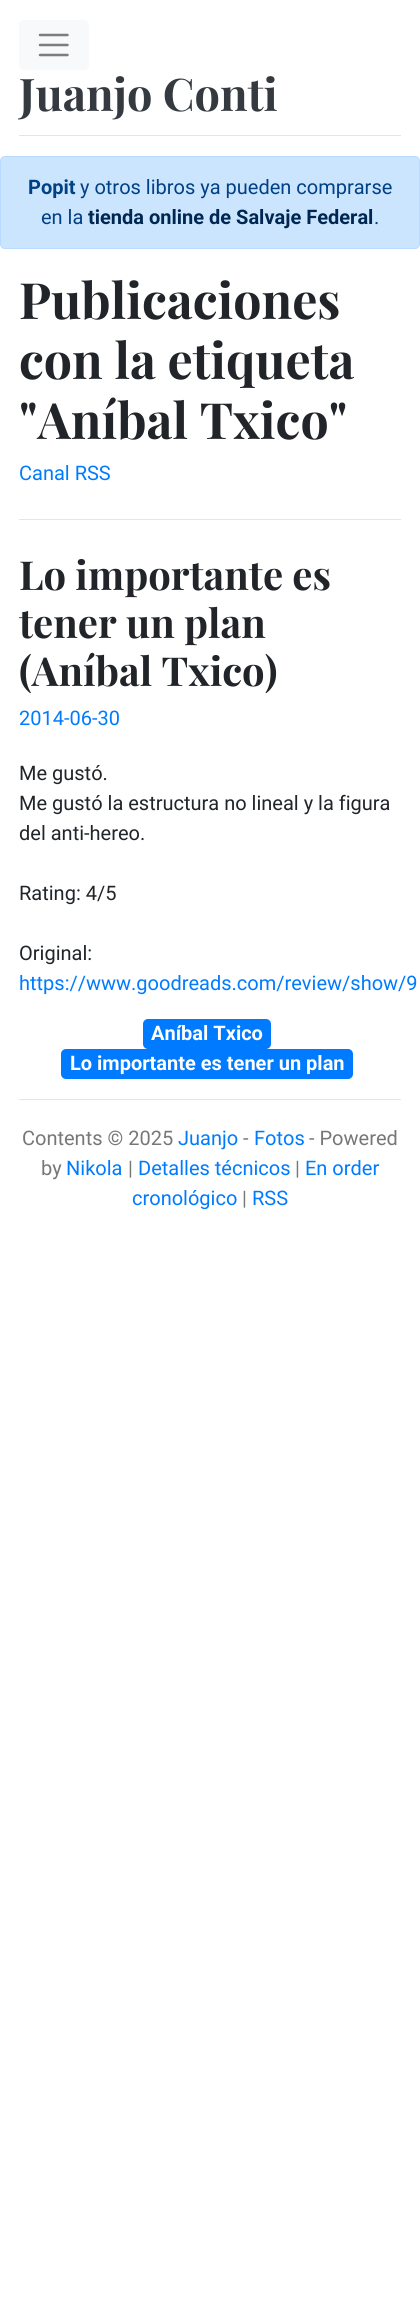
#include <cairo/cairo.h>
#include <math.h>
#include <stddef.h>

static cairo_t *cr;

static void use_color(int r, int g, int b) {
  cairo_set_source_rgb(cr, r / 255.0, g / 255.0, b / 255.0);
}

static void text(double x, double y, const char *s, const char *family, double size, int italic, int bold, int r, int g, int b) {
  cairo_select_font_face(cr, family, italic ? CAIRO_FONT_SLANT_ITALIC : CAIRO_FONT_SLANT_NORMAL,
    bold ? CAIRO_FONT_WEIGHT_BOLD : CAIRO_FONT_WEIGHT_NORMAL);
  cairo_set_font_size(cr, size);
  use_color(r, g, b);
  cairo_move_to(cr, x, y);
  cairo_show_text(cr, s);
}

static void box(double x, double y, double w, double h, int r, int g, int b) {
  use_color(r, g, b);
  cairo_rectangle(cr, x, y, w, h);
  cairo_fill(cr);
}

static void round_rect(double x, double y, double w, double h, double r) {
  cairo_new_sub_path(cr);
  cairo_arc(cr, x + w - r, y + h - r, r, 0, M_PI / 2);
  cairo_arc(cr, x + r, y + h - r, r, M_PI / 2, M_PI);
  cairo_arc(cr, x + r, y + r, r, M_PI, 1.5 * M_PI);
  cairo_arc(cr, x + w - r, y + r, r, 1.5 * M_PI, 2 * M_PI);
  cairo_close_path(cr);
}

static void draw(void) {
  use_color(255, 255, 255);
  cairo_paint(cr);
  box(19, 135, 382, 1, 229, 229, 229);
  use_color(248, 249, 250);
  round_rect(19, 20, 70, 50, 5);
  cairo_fill(cr);
  cairo_new_path(cr);
  cairo_move_to(cr, 40, 35);
  cairo_line_to(cr, 67.5, 35);
  cairo_move_to(cr, 40, 45);
  cairo_line_to(cr, 67.5, 45);
  cairo_move_to(cr, 40, 55);
  cairo_line_to(cr, 67.5, 55);
  use_color(124, 125, 125);
  cairo_set_line_width(cr, 2.5);
  cairo_set_line_cap(cr, CAIRO_LINE_CAP_ROUND);
  cairo_stroke(cr);
  use_color(204, 229, 255);
  round_rect(0.5, 156.5, 419, 92, 4.5);
  cairo_fill_preserve(cr);
  use_color(184, 218, 255);
  cairo_set_line_width(cr, 1);
  cairo_set_line_cap(cr, CAIRO_LINE_CAP_BUTT);
  cairo_stroke(cr);
  box(19, 519, 382, 1, 230, 230, 230);
  use_color(0, 123, 255);
  round_rect(143, 1019, 128, 30, 5);
  cairo_fill(cr);
  round_rect(61, 1049, 292, 30, 5);
  cairo_fill(cr);
  box(19, 1099, 382, 1, 229, 229, 229);
  text(19, 111, "Juanjo Conti", "Playfair Display", 45, 0, 1, 52, 58, 64);
  text(28, 194, "Popit", "Roboto", 20, 0, 1, 0, 64, 133);
  text(80, 194, "y otros libros ya pueden comprarse", "Roboto", 20, 0, 0, 0, 64, 133);
  text(41, 224, "en la", "Roboto", 20, 0, 0, 0, 64, 133);
  text(88, 224, "tienda online de Salvaje Federal", "Roboto", 20, 0, 1, 0, 39, 82);
  text(374, 224, ".", "Roboto", 20, 0, 0, 0, 64, 133);
  text(19, 319, "Publicaciones", "Playfair Display", 50, 0, 1, 33, 37, 41);
  text(19, 379, "con la etiqueta", "Playfair Display", 50, 0, 1, 33, 37, 41);
  text(19, 439, "\"Aníbal Txico\"", "Playfair Display", 50, 0, 1, 33, 37, 41);
  text(19, 480, "Canal RSS", "Roboto", 20, 0, 0, 0, 123, 255);
  text(19, 590, "Lo importante es", "Playfair Display", 40, 0, 1, 33, 37, 41);
  text(19, 638, "tener un plan", "Playfair Display", 40, 0, 1, 33, 37, 41);
  text(19, 686, "(Aníbal Txico)", "Playfair Display", 40, 0, 1, 33, 37, 41);
  text(19, 725, "2014-06-30", "Roboto", 20, 0, 0, 0, 123, 255);
  text(19, 780, "Me gustó.", "Roboto", 20, 0, 0, 33, 37, 41);
  text(19, 810, "Me gustó la estructura no lineal y la figura", "Roboto", 20, 0, 0, 33, 37, 41);
  text(19, 840, "del anti-hereo.", "Roboto", 20, 0, 0, 33, 37, 41);
  text(19, 900, "Rating: 4/5", "Roboto", 20, 0, 0, 33, 37, 41);
  text(19, 960, "Original:", "Roboto", 20, 0, 0, 33, 37, 41);
  text(19, 990, "https://www.goodreads.com/review/show/9", "Roboto", 20, 0, 0, 0, 123, 255);
  text(151, 1040, "Aníbal Txico", "Roboto", 20, 0, 1, 255, 255, 255);
  text(70, 1070, "Lo importante es tener un plan", "Roboto", 20, 0, 1, 255, 255, 255);
  text(22, 1145, "Contents © 2025", "Roboto", 20, 0, 0, 119, 119, 119);
  text(178, 1145, "Juanjo", "Roboto", 20, 0, 0, 0, 123, 255);
  text(243, 1145, "-", "Roboto", 20, 0, 0, 119, 119, 119);
  text(254, 1145, "Fotos", "Roboto", 20, 0, 0, 0, 123, 255);
  text(309, 1145, "- Powered", "Roboto", 20, 0, 0, 119, 119, 119);
  text(41, 1175, "by", "Roboto", 20, 0, 0, 119, 119, 119);
  text(66, 1175, "Nikola", "Roboto", 20, 0, 0, 0, 123, 255);
  text(128, 1175, "|", "Roboto", 20, 0, 0, 119, 119, 119);
  text(138, 1175, "Detalles técnicos", "Roboto", 20, 0, 0, 0, 123, 255);
  text(295, 1175, "|", "Roboto", 20, 0, 0, 119, 119, 119);
  text(305, 1175, "En order", "Roboto", 20, 0, 0, 0, 123, 255);
  text(132, 1205, "cronológico", "Roboto", 20, 0, 0, 0, 123, 255);
  text(242, 1205, "|", "Roboto", 20, 0, 0, 119, 119, 119);
  text(252, 1205, "RSS", "Roboto", 20, 0, 0, 0, 123, 255);
}

int main(void) {
  cairo_surface_t *surface = cairo_image_surface_create(CAIRO_FORMAT_RGB24, 420, 2310);
  cr = cairo_create(surface);
  cairo_font_options_t *options = cairo_font_options_create();
  cairo_font_options_set_hint_metrics(options, CAIRO_HINT_METRICS_OFF);
  cairo_font_options_set_hint_style(options, CAIRO_HINT_STYLE_NONE);
  cairo_set_font_options(cr, options);
  cairo_set_miter_limit(cr, 4);
  draw();
  cairo_surface_write_to_png(surface, "out.png");
  cairo_font_options_destroy(options);
  cairo_destroy(cr);
  cairo_surface_destroy(surface);
  return 0;
}
